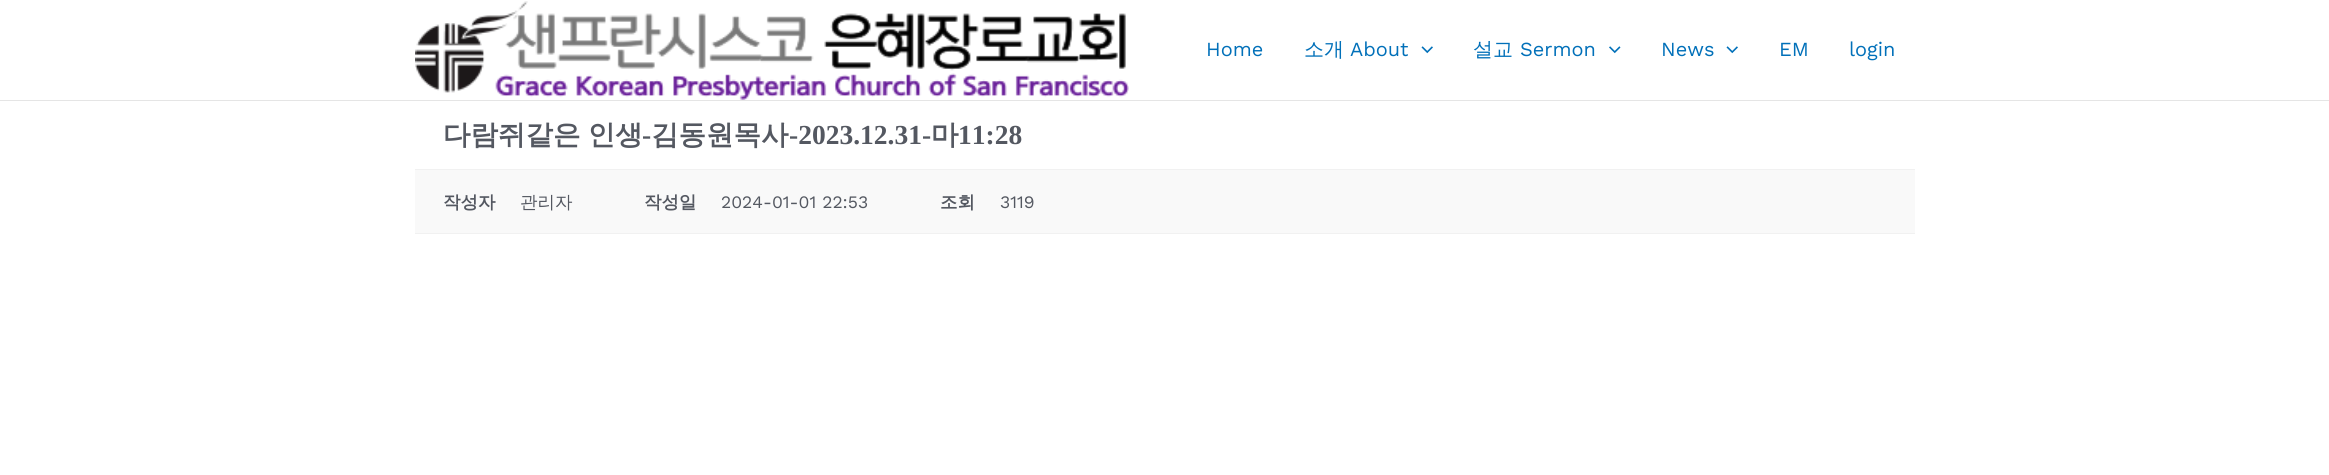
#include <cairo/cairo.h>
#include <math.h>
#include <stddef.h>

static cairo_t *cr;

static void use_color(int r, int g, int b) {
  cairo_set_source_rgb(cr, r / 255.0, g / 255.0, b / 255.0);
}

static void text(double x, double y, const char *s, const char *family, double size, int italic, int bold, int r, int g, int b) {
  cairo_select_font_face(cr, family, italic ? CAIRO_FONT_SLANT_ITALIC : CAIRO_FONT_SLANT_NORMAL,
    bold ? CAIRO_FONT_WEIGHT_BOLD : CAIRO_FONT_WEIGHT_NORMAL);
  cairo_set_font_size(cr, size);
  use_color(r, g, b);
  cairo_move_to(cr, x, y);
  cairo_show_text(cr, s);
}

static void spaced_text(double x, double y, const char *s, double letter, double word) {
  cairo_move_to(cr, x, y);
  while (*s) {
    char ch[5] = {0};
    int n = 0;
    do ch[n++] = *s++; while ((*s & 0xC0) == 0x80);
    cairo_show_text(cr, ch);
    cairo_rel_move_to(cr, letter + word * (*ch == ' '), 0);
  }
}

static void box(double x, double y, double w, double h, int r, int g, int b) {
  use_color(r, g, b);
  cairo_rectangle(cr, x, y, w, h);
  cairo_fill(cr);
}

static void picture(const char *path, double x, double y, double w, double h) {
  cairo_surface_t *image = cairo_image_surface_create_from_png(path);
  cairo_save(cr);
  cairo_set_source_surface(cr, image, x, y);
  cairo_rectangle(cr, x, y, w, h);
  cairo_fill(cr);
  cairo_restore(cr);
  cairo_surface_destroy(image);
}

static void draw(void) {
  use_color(255, 255, 255);
  cairo_paint(cr);
  box(0, 100, 2329, 1, 229, 229, 229);
  picture("img_01.png", 415, 1, 714, 99);
  picture("img_02.png", 1421, 46, 12, 8);
  picture("img_03.png", 1609, 46, 12, 8);
  picture("img_02.png", 1726, 46, 12, 8);
  box(415, 170, 1500, 63, 249, 249, 249);
  box(415, 169, 1500, 1, 241, 241, 241);
  box(415, 233, 1500, 1, 241, 241, 241);
  text(1206, 56, "Home", "Work Sans", 20, 0, 0, 1, 112, 185);
  text(1304, 56, "소개", "WenQuanYi Zen Hei Medium", 20, 0, 0, 1, 112, 185);
  text(1350, 56, "About", "Work Sans", 20, 0, 0, 1, 112, 185);
  text(1473, 56, "설교", "WenQuanYi Zen Hei Medium", 20, 0, 0, 1, 112, 185);
  text(1520, 56, "Sermon", "Work Sans", 20, 0, 0, 1, 112, 185);
  text(1661, 56, "News", "Work Sans", 20, 0, 0, 1, 112, 185);
  text(1779, 56, "EM", "Work Sans", 20, 0, 0, 1, 112, 185);
  text(1849, 56, "login", "Work Sans", 20, 0, 0, 1, 112, 185);
  cairo_select_font_face(cr, "WenQuanYi Zen Hei", CAIRO_FONT_SLANT_NORMAL, CAIRO_FONT_WEIGHT_BOLD);
  cairo_set_font_size(cr, 27.5);
  use_color(84, 88, 97);
  spaced_text(443, 144, "다람쥐같은 인생", 0, -1);
  text(642, 144, "-", "Liberation Serif", 27.5, 0, 1, 84, 88, 97);
  text(651, 144, "김동원목사", "WenQuanYi Zen Hei", 27.5, 0, 1, 84, 88, 97);
  text(789, 144, "-2023.12.31-", "Liberation Serif", 27.5, 0, 1, 84, 88, 97);
  text(931, 144, "마", "WenQuanYi Zen Hei", 27.5, 0, 1, 84, 88, 97);
  text(958, 144, "11:28", "Liberation Serif", 27.5, 0, 1, 84, 88, 97);
  text(443, 208, "작성자", "WenQuanYi Zen Hei", 17.5, 0, 1, 84, 88, 97);
  text(520, 208, "관리자", "WenQuanYi Zen Hei Medium", 17.5, 0, 0, 84, 88, 97);
  text(644, 208, "작성일", "WenQuanYi Zen Hei", 17.5, 0, 1, 84, 88, 97);
  text(721, 208, "2024-01-01 22:53", "Work Sans", 17.5, 0, 0, 84, 88, 97);
  text(940, 208, "조회", "WenQuanYi Zen Hei", 17.5, 0, 1, 84, 88, 97);
  text(1000, 208, "3119", "Work Sans", 17.5, 0, 0, 84, 88, 97);
}

int main(void) {
  cairo_surface_t *surface = cairo_image_surface_create(CAIRO_FORMAT_RGB24, 2329, 475);
  cr = cairo_create(surface);
  cairo_font_options_t *options = cairo_font_options_create();
  cairo_font_options_set_hint_metrics(options, CAIRO_HINT_METRICS_OFF);
  cairo_font_options_set_hint_style(options, CAIRO_HINT_STYLE_NONE);
  cairo_set_font_options(cr, options);
  cairo_set_miter_limit(cr, 4);
  draw();
  cairo_surface_write_to_png(surface, "out.png");
  cairo_font_options_destroy(options);
  cairo_destroy(cr);
  cairo_surface_destroy(surface);
  return 0;
}
